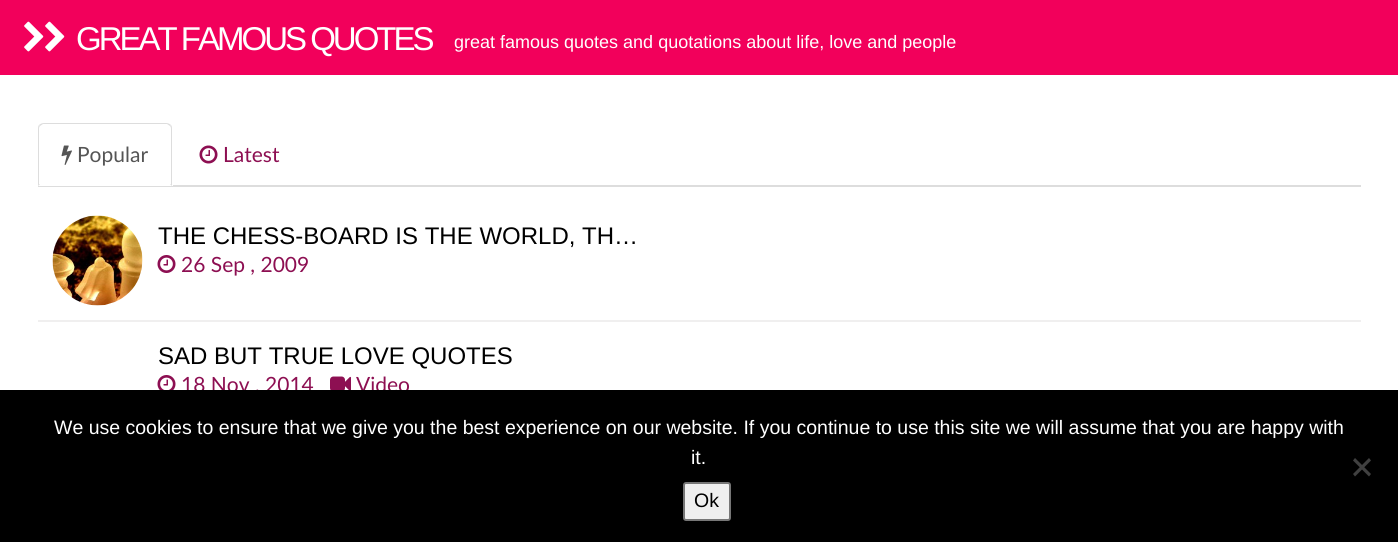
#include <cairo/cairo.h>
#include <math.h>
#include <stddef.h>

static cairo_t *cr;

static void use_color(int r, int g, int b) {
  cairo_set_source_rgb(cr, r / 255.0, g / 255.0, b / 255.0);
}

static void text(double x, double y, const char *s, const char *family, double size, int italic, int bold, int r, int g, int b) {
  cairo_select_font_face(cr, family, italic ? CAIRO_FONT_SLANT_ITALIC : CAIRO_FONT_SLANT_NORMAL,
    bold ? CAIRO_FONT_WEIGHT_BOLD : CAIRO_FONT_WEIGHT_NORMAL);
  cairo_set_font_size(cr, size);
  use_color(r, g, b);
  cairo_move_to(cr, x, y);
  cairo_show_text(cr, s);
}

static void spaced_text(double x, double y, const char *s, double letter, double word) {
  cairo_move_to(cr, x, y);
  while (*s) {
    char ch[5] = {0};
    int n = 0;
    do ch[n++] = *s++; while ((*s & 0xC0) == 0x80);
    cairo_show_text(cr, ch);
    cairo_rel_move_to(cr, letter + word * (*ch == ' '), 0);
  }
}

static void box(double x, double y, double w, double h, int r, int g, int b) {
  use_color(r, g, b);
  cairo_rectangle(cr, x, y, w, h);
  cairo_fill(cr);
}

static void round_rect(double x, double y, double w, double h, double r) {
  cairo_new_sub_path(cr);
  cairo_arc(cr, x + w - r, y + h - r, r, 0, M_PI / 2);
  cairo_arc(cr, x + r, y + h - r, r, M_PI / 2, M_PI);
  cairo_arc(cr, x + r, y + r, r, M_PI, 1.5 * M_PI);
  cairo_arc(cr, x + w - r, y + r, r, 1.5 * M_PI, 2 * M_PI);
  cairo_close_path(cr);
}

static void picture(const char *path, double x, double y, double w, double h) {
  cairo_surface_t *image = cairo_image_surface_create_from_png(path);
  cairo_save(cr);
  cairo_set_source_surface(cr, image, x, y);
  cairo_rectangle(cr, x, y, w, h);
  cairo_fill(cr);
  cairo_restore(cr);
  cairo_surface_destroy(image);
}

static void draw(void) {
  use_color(255, 255, 255);
  cairo_paint(cr);
  box(0, 0, 1398, 75, 242, 0, 91);
  picture("img_01.png", 24, 21, 20, 31);
  picture("img_01.png", 45, 21, 20, 31);
  box(38, 185, 1323, 2, 221, 221, 221);
  use_color(255, 255, 255);
  cairo_new_path(cr);
  cairo_move_to(cr, 44, 123);
  cairo_line_to(cr, 167, 123);
  cairo_curve_to(cr, 170.5, 123, 173, 125.5, 173, 129);
  cairo_line_to(cr, 173, 186);
  cairo_line_to(cr, 38, 186);
  cairo_line_to(cr, 38, 129);
  cairo_curve_to(cr, 38, 125.5, 40.5, 123, 44, 123);
  cairo_close_path(cr);
  cairo_fill(cr);
  use_color(221, 221, 221);
  cairo_new_path(cr);
  cairo_move_to(cr, 44, 123);
  cairo_curve_to(cr, 42, 123, 40, 124, 39, 125);
  cairo_line_to(cr, 40, 126);
  cairo_line_to(cr, 43, 124);
  cairo_line_to(cr, 167, 124);
  cairo_line_to(cr, 170, 126);
  cairo_line_to(cr, 171, 125);
  cairo_curve_to(cr, 170, 124, 168, 123, 166, 123);
  cairo_close_path(cr);
  cairo_fill(cr);
  cairo_new_path(cr);
  cairo_move_to(cr, 171, 125);
  cairo_curve_to(cr, 172, 126, 172, 128, 172, 129);
  cairo_line_to(cr, 172, 186);
  cairo_line_to(cr, 170, 184);
  cairo_line_to(cr, 171, 184);
  cairo_line_to(cr, 171, 129);
  cairo_curve_to(cr, 171, 128, 171, 127, 170, 126);
  cairo_close_path(cr);
  cairo_fill(cr);
  cairo_new_path(cr);
  cairo_move_to(cr, 39, 125);
  cairo_curve_to(cr, 38, 126, 38, 128, 38, 129);
  cairo_line_to(cr, 38, 186);
  cairo_line_to(cr, 40, 184);
  cairo_line_to(cr, 39, 184);
  cairo_line_to(cr, 39, 129);
  cairo_curve_to(cr, 39, 128, 39, 127, 40, 126);
  cairo_close_path(cr);
  cairo_fill(cr);
  picture("img_02.png", 61, 145, 11, 20);
  picture("img_03.png", 199, 145, 19, 19);
  box(38, 320, 1323, 2, 240, 239, 239);
  picture("img_04.png", 52, 215, 91, 91);
  picture("img_05.png", 157, 255, 19, 18);
  picture("img_06.png", 157, 375, 19, 15);
  picture("img_07.png", 330, 376, 21, 14);
  cairo_select_font_face(cr, "Liberation Sans", CAIRO_FONT_SLANT_NORMAL, CAIRO_FONT_WEIGHT_NORMAL);
  cairo_set_font_size(cr, 33);
  use_color(255, 255, 255);
  spaced_text(76, 50, "GREAT FAMOUS QUOTES", -3, 0);
  text(454, 48, "great famous quotes and quotations about life, love and people", "Liberation Sans", 18, 0, 0, 255, 255, 255);
  text(77, 162, "Popular", "Lato", 21, 0, 0, 85, 85, 85);
  text(223, 162, "Latest", "Lato", 21, 0, 0, 141, 15, 82);
  text(158, 244, "THE CHESS-BOARD IS THE WORLD, TH…", "Liberation Sans", 24, 0, 0, 0, 0, 0);
  text(181, 272, "26 Sep , 2009", "Lato", 21, 0, 0, 141, 15, 82);
  text(158, 364, "SAD BUT TRUE LOVE QUOTES", "Liberation Sans", 24, 0, 0, 0, 0, 0);
  text(181, 392, "18 Nov , 2014", "Lato", 21, 0, 0, 141, 15, 82);
  text(356, 392, "Video", "Lato", 21, 0, 0, 141, 15, 82);
  box(0, 390, 1398, 152, 0, 0, 0);
  text(54, 434, "We use cookies to ensure that we give you the best experience on our website. If you continue to use this site we will assume that you are happy with", "Liberation Sans", 19.5, 0, 0, 255, 255, 255);
  text(691, 464, "it.", "Liberation Sans", 19.5, 0, 0, 255, 255, 255);
  use_color(64, 64, 64);
  cairo_new_path(cr);
  cairo_move_to(cr, 1369, 458);
  cairo_line_to(cr, 1371, 460.5);
  cairo_line_to(cr, 1355, 476.5);
  cairo_line_to(cr, 1353, 474);
  cairo_close_path(cr);
  cairo_fill(cr);
  cairo_new_path(cr);
  cairo_move_to(cr, 1353, 460.5);
  cairo_line_to(cr, 1355, 458);
  cairo_line_to(cr, 1371, 474);
  cairo_line_to(cr, 1369, 476.5);
  cairo_close_path(cr);
  cairo_fill(cr);
  use_color(239, 239, 239);
  round_rect(684, 483, 46, 37, 2);
  cairo_fill_preserve(cr);
  use_color(118, 118, 118);
  cairo_stroke(cr);
  text(694, 507, "Ok", "Liberation Sans", 19.5, 0, 0, 0, 0, 0);
}

int main(void) {
  cairo_surface_t *surface = cairo_image_surface_create(CAIRO_FORMAT_RGB24, 1398, 542);
  cr = cairo_create(surface);
  cairo_font_options_t *options = cairo_font_options_create();
  cairo_font_options_set_hint_metrics(options, CAIRO_HINT_METRICS_OFF);
  cairo_font_options_set_hint_style(options, CAIRO_HINT_STYLE_NONE);
  cairo_set_font_options(cr, options);
  cairo_set_miter_limit(cr, 4);
  draw();
  cairo_surface_write_to_png(surface, "out.png");
  cairo_font_options_destroy(options);
  cairo_destroy(cr);
  cairo_surface_destroy(surface);
  return 0;
}
